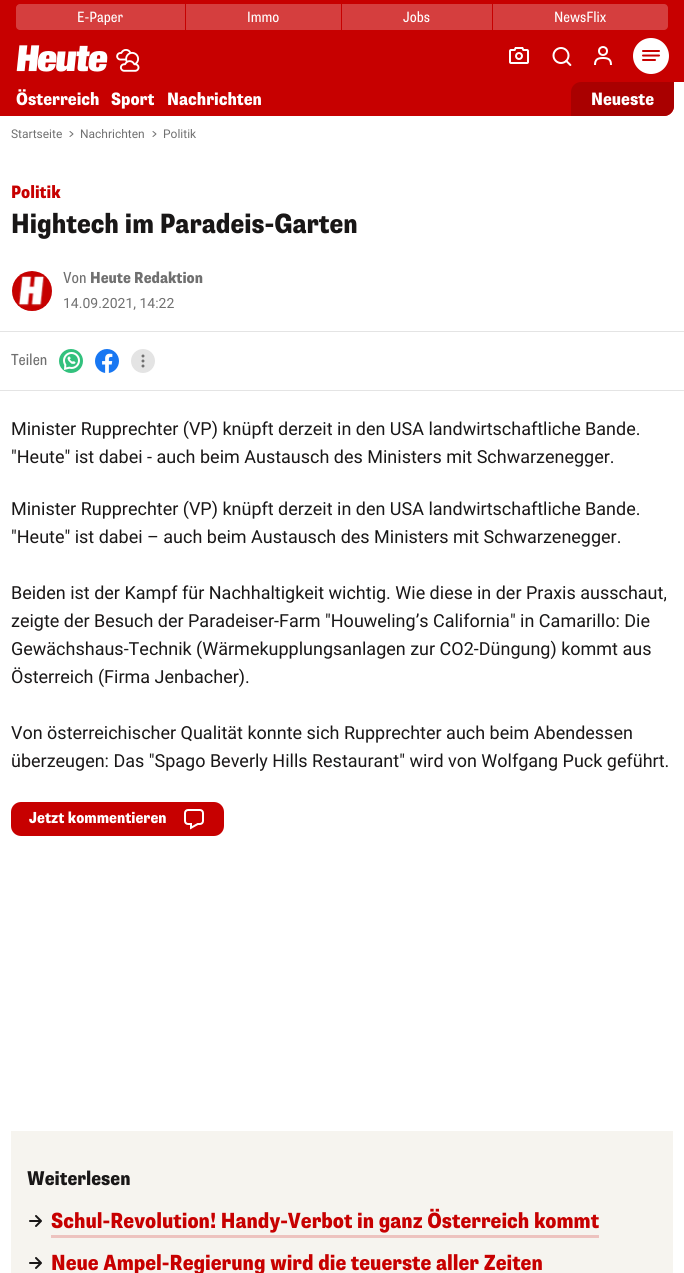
#include <cairo/cairo.h>
#include <math.h>
#include <stddef.h>

static cairo_t *cr;

static void use_color(int r, int g, int b) {
  cairo_set_source_rgb(cr, r / 255.0, g / 255.0, b / 255.0);
}

static void text(double x, double y, const char *s, const char *family, double size, int italic, int bold, int r, int g, int b) {
  cairo_select_font_face(cr, family, italic ? CAIRO_FONT_SLANT_ITALIC : CAIRO_FONT_SLANT_NORMAL,
    bold ? CAIRO_FONT_WEIGHT_BOLD : CAIRO_FONT_WEIGHT_NORMAL);
  cairo_set_font_size(cr, size);
  use_color(r, g, b);
  cairo_move_to(cr, x, y);
  cairo_show_text(cr, s);
}

static void box(double x, double y, double w, double h, int r, int g, int b) {
  use_color(r, g, b);
  cairo_rectangle(cr, x, y, w, h);
  cairo_fill(cr);
}

static void round_rect(double x, double y, double w, double h, double r) {
  cairo_new_sub_path(cr);
  cairo_arc(cr, x + w - r, y + h - r, r, 0, M_PI / 2);
  cairo_arc(cr, x + r, y + h - r, r, M_PI / 2, M_PI);
  cairo_arc(cr, x + r, y + r, r, M_PI, 1.5 * M_PI);
  cairo_arc(cr, x + w - r, y + r, r, 1.5 * M_PI, 2 * M_PI);
  cairo_close_path(cr);
}

static void picture(const char *path, double x, double y, double w, double h) {
  cairo_surface_t *image = cairo_image_surface_create_from_png(path);
  cairo_save(cr);
  cairo_set_source_surface(cr, image, x, y);
  cairo_rectangle(cr, x, y, w, h);
  cairo_fill(cr);
  cairo_restore(cr);
  cairo_surface_destroy(image);
}

static void draw(void) {
  use_color(255, 255, 255);
  cairo_paint(cr);
  box(0, 0, 684, 82, 199, 0, 0);
  use_color(213, 62, 62);
  round_rect(16, 4, 652, 26, 4);
  cairo_fill(cr);
  box(185, 4, 1, 26, 199, 0, 0);
  box(341, 4, 1, 26, 199, 0, 0);
  box(492, 4, 1, 26, 199, 0, 0);
  picture("img_01.png", 16, 45, 92, 27);
  picture("img_02.png", 116, 49, 24, 23);
  picture("img_03.png", 509, 47, 20, 17);
  picture("img_04.png", 552, 47, 20, 19);
  cairo_new_path(cr);
  cairo_move_to(cr, 611, 65);
  cairo_curve_to(cr, 611, 59.5, 608.5, 58, 603, 58);
  cairo_curve_to(cr, 597.5, 58, 595, 59.5, 595, 65);
  use_color(255, 255, 255);
  cairo_stroke(cr);
  cairo_arc(cr, 603, 51, 4, 0, 2 * M_PI);
  cairo_stroke(cr);
  cairo_arc(cr, 651, 56, 18, 0, 2 * M_PI);
  cairo_fill(cr);
  picture("img_05.png", 642, 50, 18, 11);
  use_color(199, 0, 0);
  cairo_new_path(cr);
  cairo_move_to(cr, 0, 82);
  cairo_line_to(cr, 674, 82);
  cairo_line_to(cr, 674, 106);
  cairo_curve_to(cr, 674, 111.5, 669.5, 116, 664, 116);
  cairo_line_to(cr, 0, 116);
  cairo_close_path(cr);
  cairo_fill(cr);
  use_color(169, 0, 0);
  cairo_new_path(cr);
  cairo_move_to(cr, 581, 82);
  cairo_line_to(cr, 674, 82);
  cairo_line_to(cr, 674, 106);
  cairo_curve_to(cr, 674, 111.5, 669.5, 116, 664, 116);
  cairo_line_to(cr, 571, 116);
  cairo_line_to(cr, 571, 92);
  cairo_curve_to(cr, 571, 86.5, 575.5, 82, 581, 82);
  cairo_close_path(cr);
  cairo_fill(cr);
  cairo_new_path(cr);
  cairo_move_to(cr, 70, 131.5);
  cairo_line_to(cr, 73, 134);
  cairo_line_to(cr, 70, 136.5);
  use_color(112, 112, 112);
  cairo_set_line_width(cr, 1);
  cairo_set_line_cap(cr, CAIRO_LINE_CAP_ROUND);
  cairo_set_line_join(cr, CAIRO_LINE_JOIN_ROUND);
  cairo_stroke(cr);
  cairo_new_path(cr);
  cairo_move_to(cr, 153, 131.5);
  cairo_line_to(cr, 156, 134);
  cairo_line_to(cr, 153, 136.5);
  cairo_stroke(cr);
  picture("img_06.png", 12, 271, 40, 40);
  box(0, 331, 684, 1, 228, 228, 228);
  box(0, 390, 684, 1, 228, 228, 228);
  picture("img_07.png", 59, 349, 24, 24);
  picture("img_08.png", 95, 349, 24, 24);
  cairo_arc(cr, 143, 361, 12, 0, 2 * M_PI);
  cairo_fill(cr);
  picture("img_09.png", 141, 354, 4, 14);
  use_color(199, 0, 0);
  round_rect(11, 802, 213, 34, 10);
  cairo_fill(cr);
  picture("img_10.png", 184, 809, 20, 21);
  box(11, 1131, 662, 142, 246, 244, 239);
  picture("img_11.png", 29, 1215, 13, 12);
  box(51, 1235, 548, 3, 237, 195, 191);
  picture("img_11.png", 29, 1257, 13, 12);
  text(77, 22, "E-Paper", "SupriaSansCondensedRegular", 15, 0, 0, 255, 255, 255);
  text(247, 22, "Immo", "SupriaSansCondensedRegular", 15, 0, 0, 255, 255, 255);
  text(403, 22, "Jobs", "SupriaSansCondensedRegular", 15, 0, 0, 255, 255, 255);
  text(554, 22, "NewsFlix", "SupriaSansCondensedRegular", 15, 0, 0, 255, 255, 255);
  text(16, 105, "Österreich", "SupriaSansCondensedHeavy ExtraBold", 18, 0, 0, 255, 255, 255);
  text(111, 105, "Sport", "SupriaSansCondensedHeavy ExtraBold", 18, 0, 0, 255, 255, 255);
  text(167, 105, "Nachrichten", "SupriaSansCondensedHeavy ExtraBold", 18, 0, 0, 255, 255, 255);
  text(591, 105, "Neueste", "SupriaSansCondensedHeavy ExtraBold", 18, 0, 0, 255, 255, 255);
  text(11, 138, "Startseite", "Roboto", 12, 0, 0, 112, 112, 112);
  text(80, 138, "Nachrichten", "Roboto", 12, 0, 0, 112, 112, 112);
  text(163, 138, "Politik", "Roboto", 12, 0, 0, 112, 112, 112);
  text(11, 198, "Politik", "SupriaSansCondensedHeavy ExtraBold", 18, 0, 0, 199, 0, 0);
  text(11, 233, "Hightech im Paradeis-Garten", "SupriaSansCondensedHeavy ExtraBold", 28, 0, 0, 25, 23, 23);
  text(63, 283, "Von", "SupriaSansCondensedRegular", 16, 0, 0, 112, 112, 112);
  text(90, 283, "Heute Redaktion", "SupriaSansCondensedHeavy ExtraBold", 16, 0, 0, 112, 112, 112);
  text(63, 308, "14.09.2021, 14:22", "Roboto", 14, 0, 0, 112, 112, 112);
  text(11, 365, "Teilen", "SupriaSansCondensedRegular", 16, 0, 0, 112, 112, 112);
  text(11, 435, "Minister Rupprechter (VP) knüpft derzeit in den USA landwirtschaftliche Bande.", "Roboto", 18, 0, 0, 25, 23, 23);
  text(11, 463, "\"Heute\" ist dabei - auch beim Austausch des Ministers mit Schwarzenegger.", "Roboto", 18, 0, 0, 25, 23, 23);
  text(11, 515, "Minister Rupprechter (VP) knüpft derzeit in den USA landwirtschaftliche Bande.", "Roboto", 18, 0, 0, 25, 23, 23);
  text(11, 543, "\"Heute\" ist dabei – auch beim Austausch des Ministers mit Schwarzenegger.", "Roboto", 18, 0, 0, 25, 23, 23);
  text(11, 599, "Beiden ist der Kampf für Nachhaltigkeit wichtig. Wie diese in der Praxis ausschaut,", "Roboto", 18, 0, 0, 25, 23, 23);
  text(11, 627, "zeigte der Besuch der Paradeiser-Farm \"Houweling’s California\" in Camarillo: Die", "Roboto", 18, 0, 0, 25, 23, 23);
  text(11, 655, "Gewächshaus-Technik (Wärmekupplungsanlagen zur CO2-Düngung) kommt aus", "Roboto", 18, 0, 0, 25, 23, 23);
  text(11, 683, "Österreich (Firma Jenbacher).", "Roboto", 18, 0, 0, 25, 23, 23);
  text(11, 739, "Von österreichischer Qualität konnte sich Rupprechter auch beim Abendessen", "Roboto", 18, 0, 0, 25, 23, 23);
  text(11, 767, "überzeugen: Das \"Spago Beverly Hills Restaurant\" wird von Wolfgang Puck geführt.", "Roboto", 18, 0, 0, 25, 23, 23);
  text(29, 823, "Jetzt kommentieren", "SupriaSansCondensedHeavy ExtraBold", 16, 0, 0, 255, 255, 255);
  text(27, 1185, "Weiterlesen", "SupriaSansCondensedHeavy ExtraBold", 20, 0, 0, 25, 23, 23);
  text(51, 1228, "Schul-Revolution! Handy-Verbot in ganz Österreich kommt", "SupriaSansCondensedHeavy ExtraBold", 22, 0, 0, 199, 0, 0);
  text(51, 1270, "Neue Ampel-Regierung wird die teuerste aller Zeiten", "SupriaSansCondensedHeavy ExtraBold", 22, 0, 0, 199, 0, 0);
}

int main(void) {
  cairo_surface_t *surface = cairo_image_surface_create(CAIRO_FORMAT_RGB24, 684, 1273);
  cr = cairo_create(surface);
  cairo_font_options_t *options = cairo_font_options_create();
  cairo_font_options_set_hint_metrics(options, CAIRO_HINT_METRICS_OFF);
  cairo_font_options_set_hint_style(options, CAIRO_HINT_STYLE_NONE);
  cairo_set_font_options(cr, options);
  cairo_set_miter_limit(cr, 4);
  draw();
  cairo_surface_write_to_png(surface, "out.png");
  cairo_font_options_destroy(options);
  cairo_destroy(cr);
  cairo_surface_destroy(surface);
  return 0;
}
